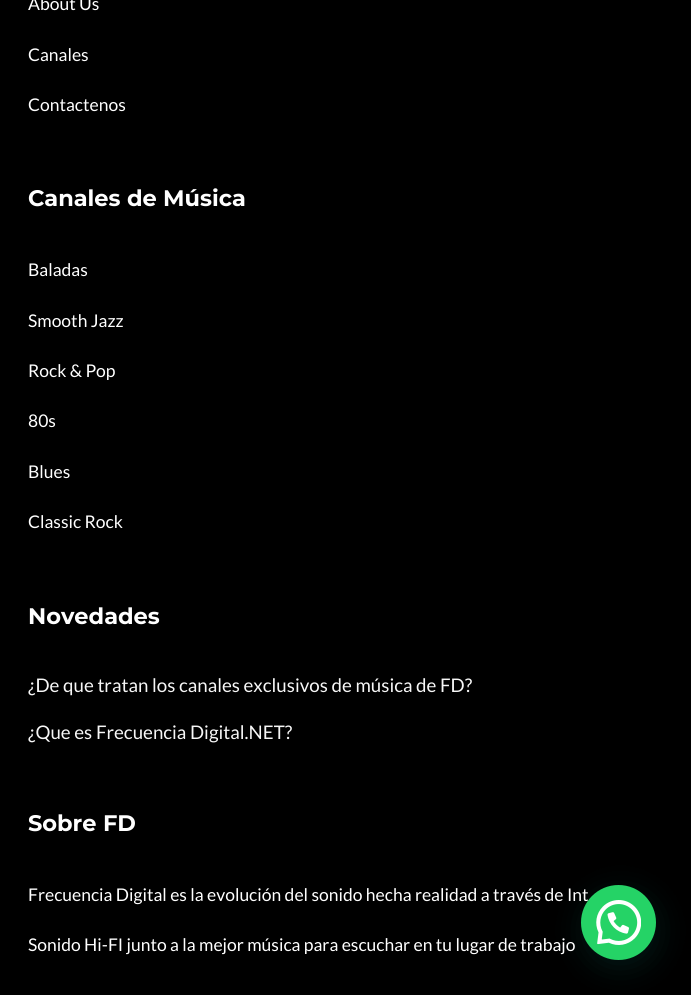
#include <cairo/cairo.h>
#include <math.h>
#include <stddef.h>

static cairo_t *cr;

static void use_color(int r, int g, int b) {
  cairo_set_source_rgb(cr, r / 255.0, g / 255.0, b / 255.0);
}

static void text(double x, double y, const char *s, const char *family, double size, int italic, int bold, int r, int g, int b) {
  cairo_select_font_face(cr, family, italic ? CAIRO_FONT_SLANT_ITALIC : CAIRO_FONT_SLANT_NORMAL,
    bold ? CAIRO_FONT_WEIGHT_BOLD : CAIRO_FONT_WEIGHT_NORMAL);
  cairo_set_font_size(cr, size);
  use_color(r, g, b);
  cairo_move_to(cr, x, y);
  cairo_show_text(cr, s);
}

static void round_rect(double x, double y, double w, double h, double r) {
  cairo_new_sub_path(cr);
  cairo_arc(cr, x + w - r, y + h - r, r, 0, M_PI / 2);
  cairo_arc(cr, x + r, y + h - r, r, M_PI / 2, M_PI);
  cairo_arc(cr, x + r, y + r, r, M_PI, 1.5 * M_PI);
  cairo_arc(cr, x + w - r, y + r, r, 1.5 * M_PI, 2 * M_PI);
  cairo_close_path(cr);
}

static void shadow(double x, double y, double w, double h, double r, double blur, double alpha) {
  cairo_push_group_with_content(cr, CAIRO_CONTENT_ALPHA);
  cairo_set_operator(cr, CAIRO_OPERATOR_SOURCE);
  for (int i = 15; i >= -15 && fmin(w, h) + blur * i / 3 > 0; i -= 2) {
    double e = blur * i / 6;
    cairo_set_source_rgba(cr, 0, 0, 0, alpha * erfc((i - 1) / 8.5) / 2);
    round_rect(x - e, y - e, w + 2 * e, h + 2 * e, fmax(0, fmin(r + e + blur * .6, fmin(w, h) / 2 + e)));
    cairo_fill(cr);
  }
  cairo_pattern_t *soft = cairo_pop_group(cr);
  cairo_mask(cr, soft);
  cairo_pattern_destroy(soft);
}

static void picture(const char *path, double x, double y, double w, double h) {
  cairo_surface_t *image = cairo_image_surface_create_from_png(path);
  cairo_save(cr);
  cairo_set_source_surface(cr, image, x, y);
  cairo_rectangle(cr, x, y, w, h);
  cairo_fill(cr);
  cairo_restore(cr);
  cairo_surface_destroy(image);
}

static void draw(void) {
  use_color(0, 0, 0);
  cairo_paint(cr);
  use_color(7, 94, 84);
  shadow(583, 893, 75, 75, 37.5, 15, 0.24);
  text(28, 10, "About Us", "Lato", 17.5, 0, 0, 255, 255, 255);
  text(28, 61, "Canales", "Lato", 17.5, 0, 0, 255, 255, 255);
  text(28, 111, "Contactenos", "Lato", 17.5, 0, 0, 255, 255, 255);
  text(28, 206, "Canales de Música", "Montserrat", 22.5, 0, 1, 255, 255, 255);
  text(28, 276, "Baladas", "Lato", 17.5, 0, 0, 255, 255, 255);
  text(28, 327, "Smooth Jazz", "Lato", 17.5, 0, 0, 255, 255, 255);
  text(28, 377, "Rock & Pop", "Lato", 17.5, 0, 0, 255, 255, 255);
  text(28, 427, "80s", "Lato", 17.5, 0, 0, 255, 255, 255);
  text(28, 478, "Blues", "Lato", 17.5, 0, 0, 255, 255, 255);
  text(28, 528, "Classic Rock", "Lato", 17.5, 0, 0, 255, 255, 255);
  text(28, 624, "Novedades", "Montserrat", 22.5, 0, 1, 255, 255, 255);
  text(28, 692, "¿De que tratan los canales exclusivos de música de FD?", "Lato", 18.75, 0, 0, 247, 247, 247);
  text(28, 739, "¿Que es Frecuencia Digital.NET?", "Lato", 18.75, 0, 0, 247, 247, 247);
  text(28, 831, "Sobre FD", "Montserrat", 22.5, 0, 1, 255, 255, 255);
  text(28, 901, "Frecuencia Digital es la evolución del sonido hecha realidad a través de Int", "Lato", 17.5, 0, 0, 255, 255, 255);
  text(28, 951, "Sonido Hi-FI junto a la mejor música para escuchar en tu lugar de trabajo", "Lato", 17.5, 0, 0, 255, 255, 255);
  use_color(37, 211, 102);
  cairo_new_path(cr);
  cairo_arc(cr, 618.5, 922.5, 37.5, 0, 2 * M_PI);
  cairo_fill(cr);
  picture("img_01.png", 596, 900, 45, 45);
}

int main(void) {
  cairo_surface_t *surface = cairo_image_surface_create(CAIRO_FORMAT_RGB24, 691, 995);
  cr = cairo_create(surface);
  cairo_font_options_t *options = cairo_font_options_create();
  cairo_font_options_set_hint_metrics(options, CAIRO_HINT_METRICS_OFF);
  cairo_font_options_set_hint_style(options, CAIRO_HINT_STYLE_NONE);
  cairo_set_font_options(cr, options);
  cairo_set_miter_limit(cr, 4);
  draw();
  cairo_surface_write_to_png(surface, "out.png");
  cairo_font_options_destroy(options);
  cairo_destroy(cr);
  cairo_surface_destroy(surface);
  return 0;
}
